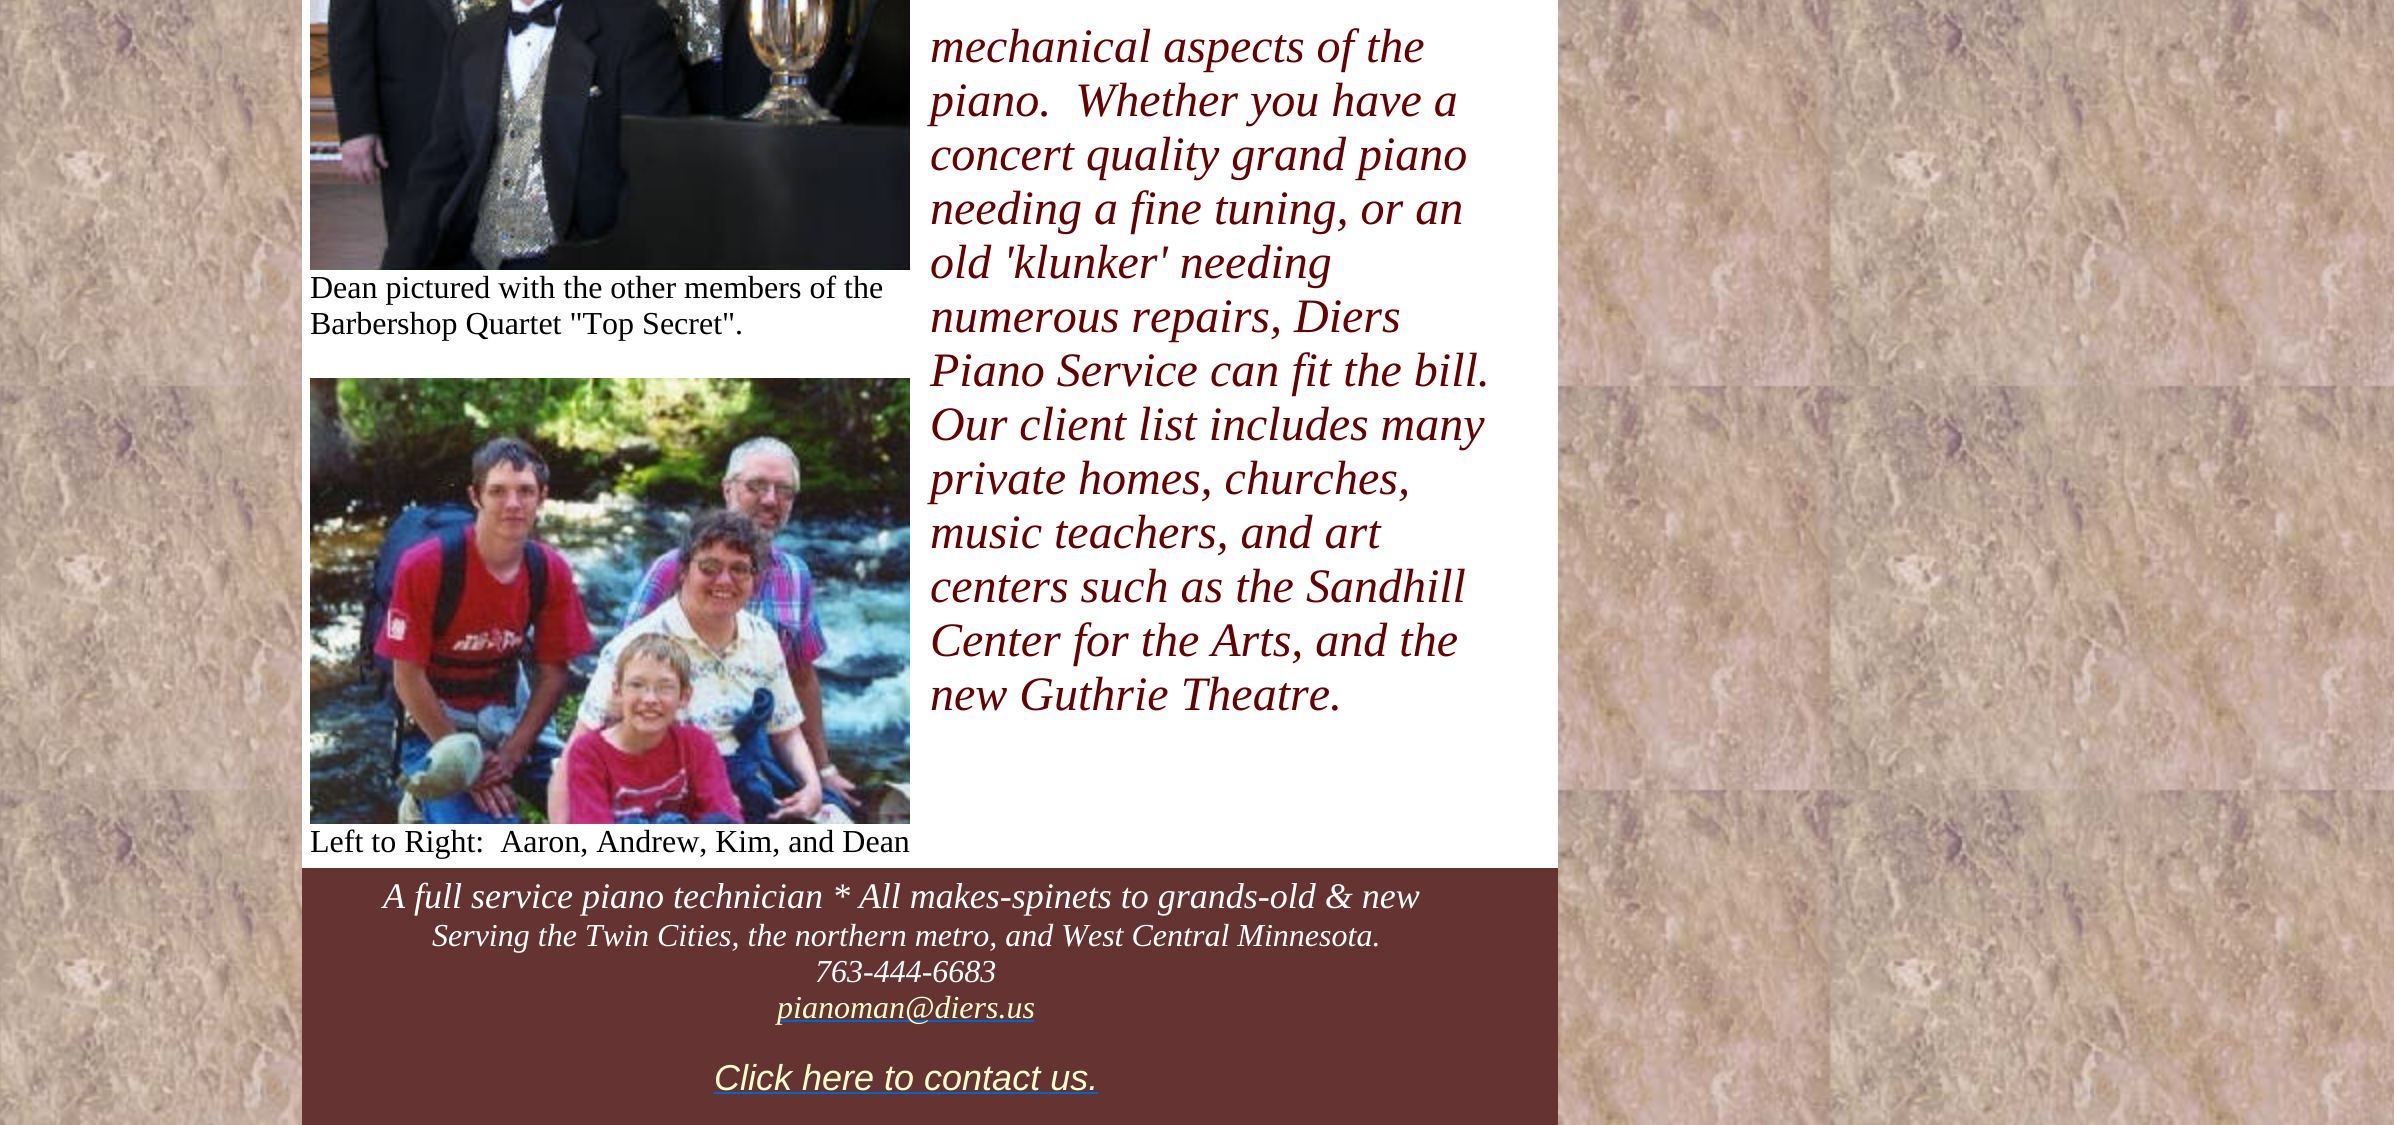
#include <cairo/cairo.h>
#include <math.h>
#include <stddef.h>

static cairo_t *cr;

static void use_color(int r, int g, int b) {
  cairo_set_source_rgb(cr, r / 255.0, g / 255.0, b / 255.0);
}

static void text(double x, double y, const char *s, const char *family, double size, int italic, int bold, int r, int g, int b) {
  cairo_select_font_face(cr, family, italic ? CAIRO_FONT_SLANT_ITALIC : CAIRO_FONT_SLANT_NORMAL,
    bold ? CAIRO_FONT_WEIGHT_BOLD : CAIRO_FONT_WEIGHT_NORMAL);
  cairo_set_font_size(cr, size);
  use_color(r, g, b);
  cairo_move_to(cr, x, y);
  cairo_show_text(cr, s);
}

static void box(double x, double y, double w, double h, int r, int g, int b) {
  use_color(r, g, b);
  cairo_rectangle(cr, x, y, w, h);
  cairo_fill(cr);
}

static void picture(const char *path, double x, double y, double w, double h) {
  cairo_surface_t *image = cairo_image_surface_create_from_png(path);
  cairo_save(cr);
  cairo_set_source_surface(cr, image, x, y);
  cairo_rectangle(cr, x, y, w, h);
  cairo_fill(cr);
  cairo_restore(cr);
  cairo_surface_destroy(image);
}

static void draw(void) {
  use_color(255, 255, 255);
  cairo_paint(cr);
  picture("img_01.png", 0, 0, 2394, 1125);
  box(302, 0, 1256, 868, 255, 255, 255);
  picture("img_02.png", 310, 0, 600, 270);
  picture("img_03.png", 310, 378, 600, 446);
  box(302, 868, 1256, 257, 102, 51, 51);
  box(778, 1020, 256, 2, 0, 102, 204);
  box(714, 1092, 384, 2, 0, 102, 204);
  text(310, 298, "Dean pictured with the other members of the", "Liberation Serif", 32, 0, 0, 0, 0, 0);
  text(310, 334, "Barbershop Quartet \"Top Secret\".", "Liberation Serif", 32, 0, 0, 0, 0, 0);
  text(310, 852, "Left to Right:  Aaron, Andrew, Kim, and Dean", "Liberation Serif", 32, 0, 0, 0, 0, 0);
  text(930, 62, "mechanical aspects of the", "Liberation Serif", 48, 1, 0, 102, 0, 0);
  text(930, 116, "piano.  Whether you have a", "Liberation Serif", 48, 1, 0, 102, 0, 0);
  text(930, 170, "concert quality grand piano", "Liberation Serif", 48, 1, 0, 102, 0, 0);
  text(930, 224, "needing a fine tuning, or an", "Liberation Serif", 48, 1, 0, 102, 0, 0);
  text(930, 278, "old 'klunker' needing", "Liberation Serif", 48, 1, 0, 102, 0, 0);
  text(930, 332, "numerous repairs, Diers", "Liberation Serif", 48, 1, 0, 102, 0, 0);
  text(930, 386, "Piano Service can fit the bill.", "Liberation Serif", 48, 1, 0, 102, 0, 0);
  text(930, 440, "Our client list includes many", "Liberation Serif", 48, 1, 0, 102, 0, 0);
  text(930, 494, "private homes, churches,", "Liberation Serif", 48, 1, 0, 102, 0, 0);
  text(930, 548, "music teachers, and art", "Liberation Serif", 48, 1, 0, 102, 0, 0);
  text(930, 602, "centers such as the Sandhill", "Liberation Serif", 48, 1, 0, 102, 0, 0);
  text(930, 656, "Center for the Arts, and the", "Liberation Serif", 48, 1, 0, 102, 0, 0);
  text(930, 710, "new Guthrie Theatre.", "Liberation Serif", 48, 1, 0, 102, 0, 0);
  text(383, 908, "A full service piano technician * All makes-spinets to grands-old & new", "Liberation Serif", 36, 1, 0, 255, 255, 255);
  text(432, 946, "Serving the Twin Cities, the northern metro, and West Central Minnesota.", "Liberation Serif", 32, 1, 0, 255, 255, 255);
  text(815, 982, "763-444-6683", "Liberation Serif", 32, 1, 0, 255, 255, 255);
  text(777, 1018, "pianoman@diers.us", "Liberation Serif", 32, 1, 0, 255, 255, 204);
  text(714, 1090, "Click here to contact us.", "Liberation Sans", 36, 1, 0, 255, 255, 204);
}

int main(void) {
  cairo_surface_t *surface = cairo_image_surface_create(CAIRO_FORMAT_RGB24, 2394, 1125);
  cr = cairo_create(surface);
  cairo_font_options_t *options = cairo_font_options_create();
  cairo_font_options_set_hint_metrics(options, CAIRO_HINT_METRICS_OFF);
  cairo_font_options_set_hint_style(options, CAIRO_HINT_STYLE_NONE);
  cairo_set_font_options(cr, options);
  cairo_set_miter_limit(cr, 4);
  draw();
  cairo_surface_write_to_png(surface, "out.png");
  cairo_font_options_destroy(options);
  cairo_destroy(cr);
  cairo_surface_destroy(surface);
  return 0;
}
